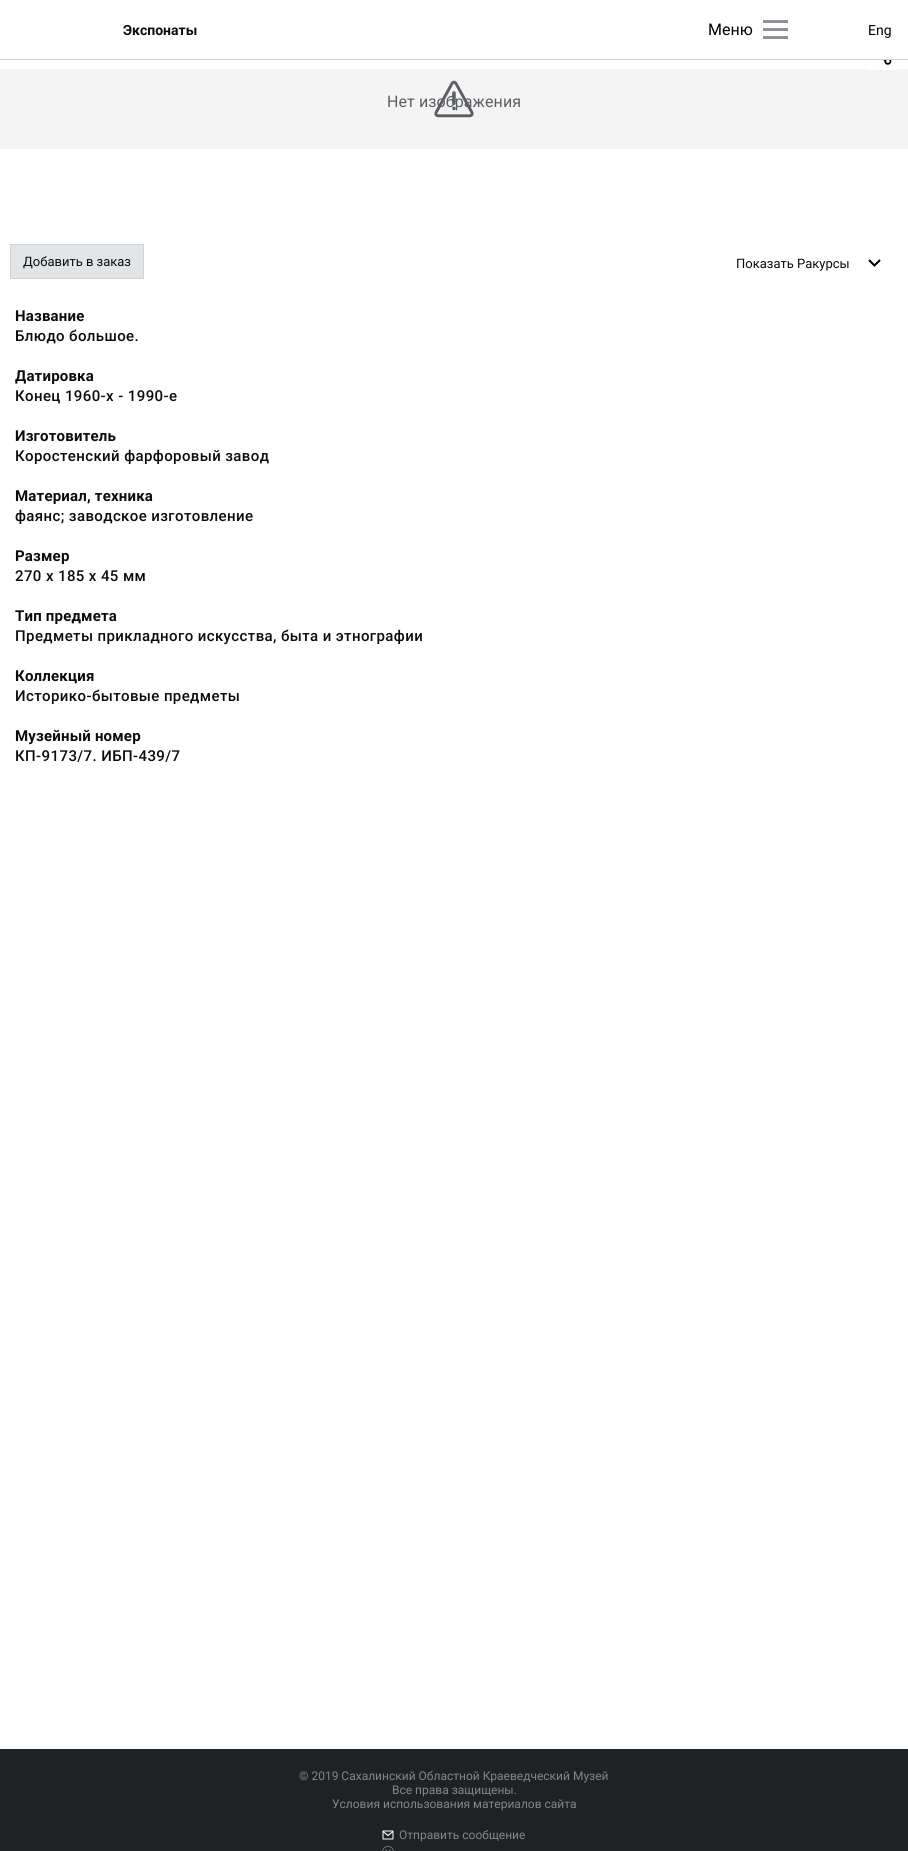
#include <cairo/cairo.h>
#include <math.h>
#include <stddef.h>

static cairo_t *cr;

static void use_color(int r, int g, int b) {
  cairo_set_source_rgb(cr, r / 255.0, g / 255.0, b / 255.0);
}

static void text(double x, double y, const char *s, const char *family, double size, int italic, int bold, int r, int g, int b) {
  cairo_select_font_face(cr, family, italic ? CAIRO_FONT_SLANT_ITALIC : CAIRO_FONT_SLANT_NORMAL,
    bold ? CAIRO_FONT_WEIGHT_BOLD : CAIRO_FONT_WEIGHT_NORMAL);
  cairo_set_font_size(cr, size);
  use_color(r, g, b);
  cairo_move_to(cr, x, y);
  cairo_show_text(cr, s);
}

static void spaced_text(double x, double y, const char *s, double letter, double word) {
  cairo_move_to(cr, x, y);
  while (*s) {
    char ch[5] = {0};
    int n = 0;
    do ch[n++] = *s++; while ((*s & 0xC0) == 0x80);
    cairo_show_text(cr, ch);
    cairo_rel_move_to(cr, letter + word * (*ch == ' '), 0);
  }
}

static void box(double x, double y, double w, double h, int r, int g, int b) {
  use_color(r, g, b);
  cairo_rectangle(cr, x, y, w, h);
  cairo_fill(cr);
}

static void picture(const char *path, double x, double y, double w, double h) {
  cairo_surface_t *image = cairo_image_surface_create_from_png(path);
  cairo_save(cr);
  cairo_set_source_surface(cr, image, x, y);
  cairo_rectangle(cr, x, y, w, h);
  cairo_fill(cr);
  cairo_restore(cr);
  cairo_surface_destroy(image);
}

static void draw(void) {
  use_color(255, 255, 255);
  cairo_paint(cr);
  box(0, 59, 908, 1, 211, 211, 211);
  box(763, 20, 25, 3, 142, 145, 149);
  box(763, 28, 25, 3, 142, 145, 149);
  box(763, 36, 25, 3, 142, 145, 149);
  box(0, 69, 908, 80, 244, 244, 245);
  use_color(226, 229, 232);
  cairo_rectangle(cr, 10.5, 244.5, 133, 34);
  cairo_fill_preserve(cr);
  use_color(211, 211, 211);
  cairo_set_line_width(cr, 1);
  cairo_stroke(cr);
  picture("img_02.png", 868, 259, 13, 8);
  box(867, 69, 31, 1, 255, 255, 255);
  picture("img_03.png", 880, 60, 12, 5);
  box(0, 1749, 908, 102, 31, 34, 36);
  picture("img_04.png", 382, 1830, 12, 10);
  picture("img_05.png", 382, 1846, 12, 5);
  text(123, 35, "Экспонаты", "Roboto", 14, 0, 1, 10, 13, 16);
  text(708, 35, "Меню", "Roboto", 16, 0, 0, 0, 0, 0);
  text(868, 35, "Eng", "Roboto", 14, 0, 0, 0, 0, 0);
  cairo_set_font_size(cr, 16);
  use_color(92, 95, 98);
  spaced_text(387, 107, "Нет изображения", 0.1, 0);
  picture("img_01.png", 434, 80, 40, 38);
  text(23, 266, "Добавить в заказ", "Roboto", 13, 0, 0, 10, 13, 16);
  text(736, 268, "Показать Ракурсы", "Roboto", 13, 0, 0, 10, 13, 16);
  cairo_select_font_face(cr, "Roboto", CAIRO_FONT_SLANT_NORMAL, CAIRO_FONT_WEIGHT_BOLD);
  cairo_set_font_size(cr, 15);
  spaced_text(15, 321, "Название", 0.2, 0);
  cairo_select_font_face(cr, "Roboto Medium", CAIRO_FONT_SLANT_NORMAL, CAIRO_FONT_WEIGHT_NORMAL);
  spaced_text(15, 341, "Блюдо большое.", 0.4, 0);
  cairo_select_font_face(cr, "Roboto", CAIRO_FONT_SLANT_NORMAL, CAIRO_FONT_WEIGHT_BOLD);
  spaced_text(15, 381, "Датировка", 0.2, 0);
  cairo_select_font_face(cr, "Roboto Medium", CAIRO_FONT_SLANT_NORMAL, CAIRO_FONT_WEIGHT_NORMAL);
  spaced_text(15, 401, "Конец 1960-х - 1990-е", 0.4, 0);
  cairo_select_font_face(cr, "Roboto", CAIRO_FONT_SLANT_NORMAL, CAIRO_FONT_WEIGHT_BOLD);
  spaced_text(15, 441, "Изготовитель", 0.2, 0);
  cairo_select_font_face(cr, "Roboto Medium", CAIRO_FONT_SLANT_NORMAL, CAIRO_FONT_WEIGHT_NORMAL);
  spaced_text(15, 461, "Коростенский фарфоровый завод", 0.4, 0);
  cairo_select_font_face(cr, "Roboto", CAIRO_FONT_SLANT_NORMAL, CAIRO_FONT_WEIGHT_BOLD);
  spaced_text(15, 501, "Материал, техника", 0.2, 0);
  cairo_select_font_face(cr, "Roboto Medium", CAIRO_FONT_SLANT_NORMAL, CAIRO_FONT_WEIGHT_NORMAL);
  spaced_text(15, 521, "фаянс; заводское изготовление", 0.4, 0);
  cairo_select_font_face(cr, "Roboto", CAIRO_FONT_SLANT_NORMAL, CAIRO_FONT_WEIGHT_BOLD);
  spaced_text(15, 561, "Размер", 0.2, 0);
  cairo_select_font_face(cr, "Roboto Medium", CAIRO_FONT_SLANT_NORMAL, CAIRO_FONT_WEIGHT_NORMAL);
  spaced_text(15, 581, "270 х 185 х 45 мм", 0.4, 0);
  cairo_select_font_face(cr, "Roboto", CAIRO_FONT_SLANT_NORMAL, CAIRO_FONT_WEIGHT_BOLD);
  spaced_text(15, 621, "Тип предмета", 0.2, 0);
  cairo_select_font_face(cr, "Roboto Medium", CAIRO_FONT_SLANT_NORMAL, CAIRO_FONT_WEIGHT_NORMAL);
  spaced_text(15, 641, "Предметы прикладного искусства, быта и этнографии", 0.4, 0);
  cairo_select_font_face(cr, "Roboto", CAIRO_FONT_SLANT_NORMAL, CAIRO_FONT_WEIGHT_BOLD);
  spaced_text(15, 681, "Коллекция", 0.2, 0);
  cairo_select_font_face(cr, "Roboto Medium", CAIRO_FONT_SLANT_NORMAL, CAIRO_FONT_WEIGHT_NORMAL);
  spaced_text(15, 701, "Историко-бытовые предметы", 0.4, 0);
  cairo_select_font_face(cr, "Roboto", CAIRO_FONT_SLANT_NORMAL, CAIRO_FONT_WEIGHT_BOLD);
  spaced_text(15, 741, "Музейный номер", 0.2, 0);
  cairo_select_font_face(cr, "Roboto Medium", CAIRO_FONT_SLANT_NORMAL, CAIRO_FONT_WEIGHT_NORMAL);
  spaced_text(15, 761, "КП-9173/7. ИБП-439/7", 0.4, 0);
  text(299, 1780, "© 2019 Сахалинский Областной Краеведческий Музей", "Roboto", 12, 0, 0, 133, 133, 133);
  text(392, 1794, "Все права защищены.", "Roboto", 12, 0, 0, 133, 133, 133);
  text(332, 1808, "Условия использования материалов сайта", "Roboto", 12, 0, 0, 133, 133, 133);
  text(399, 1839, "Отправить сообщение", "Roboto", 12, 0, 0, 133, 133, 133);
}

int main(void) {
  cairo_surface_t *surface = cairo_image_surface_create(CAIRO_FORMAT_RGB24, 908, 1851);
  cr = cairo_create(surface);
  cairo_font_options_t *options = cairo_font_options_create();
  cairo_font_options_set_hint_metrics(options, CAIRO_HINT_METRICS_OFF);
  cairo_font_options_set_hint_style(options, CAIRO_HINT_STYLE_NONE);
  cairo_set_font_options(cr, options);
  cairo_set_miter_limit(cr, 4);
  draw();
  cairo_surface_write_to_png(surface, "out.png");
  cairo_font_options_destroy(options);
  cairo_destroy(cr);
  cairo_surface_destroy(surface);
  return 0;
}
